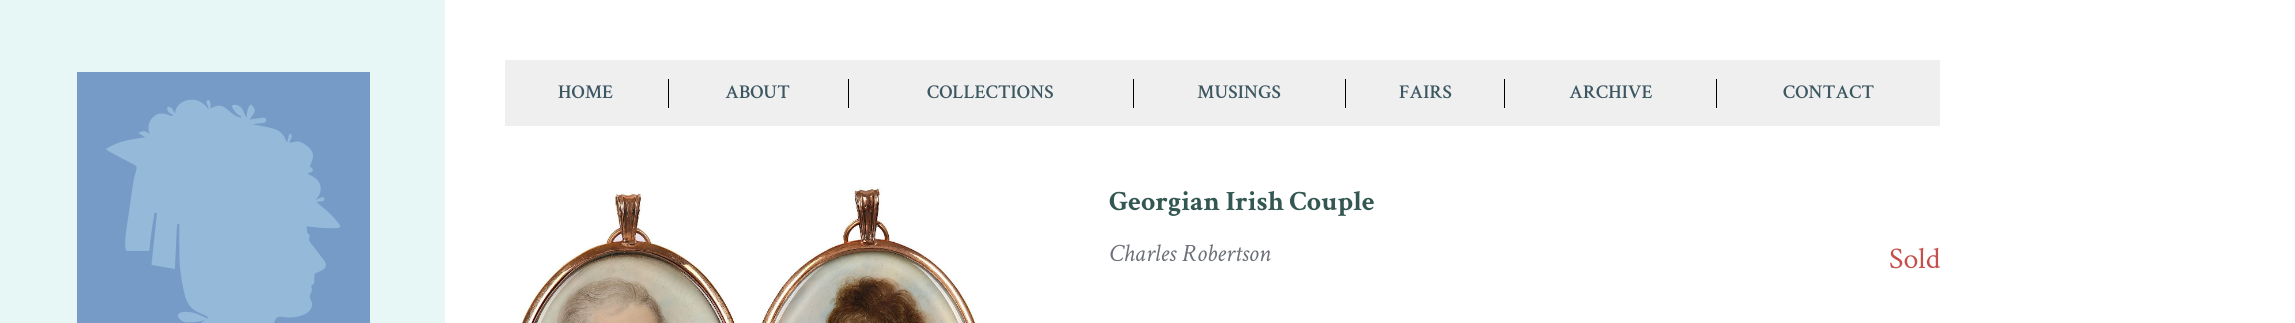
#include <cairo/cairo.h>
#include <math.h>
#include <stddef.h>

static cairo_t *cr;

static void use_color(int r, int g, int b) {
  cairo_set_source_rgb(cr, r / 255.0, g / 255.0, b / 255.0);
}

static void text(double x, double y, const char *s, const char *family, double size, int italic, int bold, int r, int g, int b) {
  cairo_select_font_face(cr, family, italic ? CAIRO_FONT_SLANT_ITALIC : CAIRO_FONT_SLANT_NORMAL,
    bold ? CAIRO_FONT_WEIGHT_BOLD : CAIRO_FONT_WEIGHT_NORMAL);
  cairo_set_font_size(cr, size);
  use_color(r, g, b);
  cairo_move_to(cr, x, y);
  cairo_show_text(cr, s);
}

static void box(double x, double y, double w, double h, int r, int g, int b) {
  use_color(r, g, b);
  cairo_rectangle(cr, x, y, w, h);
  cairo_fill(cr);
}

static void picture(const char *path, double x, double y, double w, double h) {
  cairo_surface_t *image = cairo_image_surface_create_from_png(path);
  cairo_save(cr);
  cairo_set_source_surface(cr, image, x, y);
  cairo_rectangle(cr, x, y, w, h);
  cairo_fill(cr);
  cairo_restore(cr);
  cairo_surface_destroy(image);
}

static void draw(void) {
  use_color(255, 255, 255);
  cairo_paint(cr);
  box(0, 0, 445, 323, 230, 247, 245);
  picture("img_01.png", 77, 72, 293, 251);
  box(505, 60, 1435, 66, 239, 239, 239);
  box(668, 79, 1, 29, 0, 0, 0);
  box(848, 79, 1, 29, 0, 0, 0);
  box(1133, 79, 1, 29, 0, 0, 0);
  box(1345, 79, 1, 29, 0, 0, 0);
  box(1504, 79, 1, 29, 0, 0, 0);
  box(1716, 79, 1, 29, 0, 0, 0);
  picture("img_02.png", 520, 186, 457, 137);
  text(558, 98, "HOME", "Crimson Text SemiBold", 19.5, 0, 0, 60, 87, 97);
  text(725, 98, "ABOUT", "Crimson Text SemiBold", 19.5, 0, 0, 60, 87, 97);
  text(927, 98, "COLLECTIONS", "Crimson Text SemiBold", 19.5, 0, 0, 60, 87, 97);
  text(1197, 98, "MUSINGS", "Crimson Text SemiBold", 19.5, 0, 0, 60, 87, 97);
  text(1399, 98, "FAIRS", "Crimson Text SemiBold", 19.5, 0, 0, 60, 87, 97);
  text(1569, 98, "ARCHIVE", "Crimson Text SemiBold", 19.5, 0, 0, 60, 87, 97);
  text(1783, 98, "CONTACT", "Crimson Text SemiBold", 19.5, 0, 0, 60, 87, 97);
  text(1109, 210, "Georgian Irish Couple", "Crimson Text", 28, 0, 1, 51, 87, 81);
  text(1109, 261, "Charles Robertson", "Crimson Text", 25, 1, 0, 108, 113, 119);
  text(1889, 268, "Sold", "Crimson Text", 30, 0, 0, 195, 80, 77);
}

int main(void) {
  cairo_surface_t *surface = cairo_image_surface_create(CAIRO_FORMAT_RGB24, 2295, 323);
  cr = cairo_create(surface);
  cairo_font_options_t *options = cairo_font_options_create();
  cairo_font_options_set_hint_metrics(options, CAIRO_HINT_METRICS_OFF);
  cairo_font_options_set_hint_style(options, CAIRO_HINT_STYLE_NONE);
  cairo_set_font_options(cr, options);
  cairo_set_miter_limit(cr, 4);
  draw();
  cairo_surface_write_to_png(surface, "out.png");
  cairo_font_options_destroy(options);
  cairo_destroy(cr);
  cairo_surface_destroy(surface);
  return 0;
}
